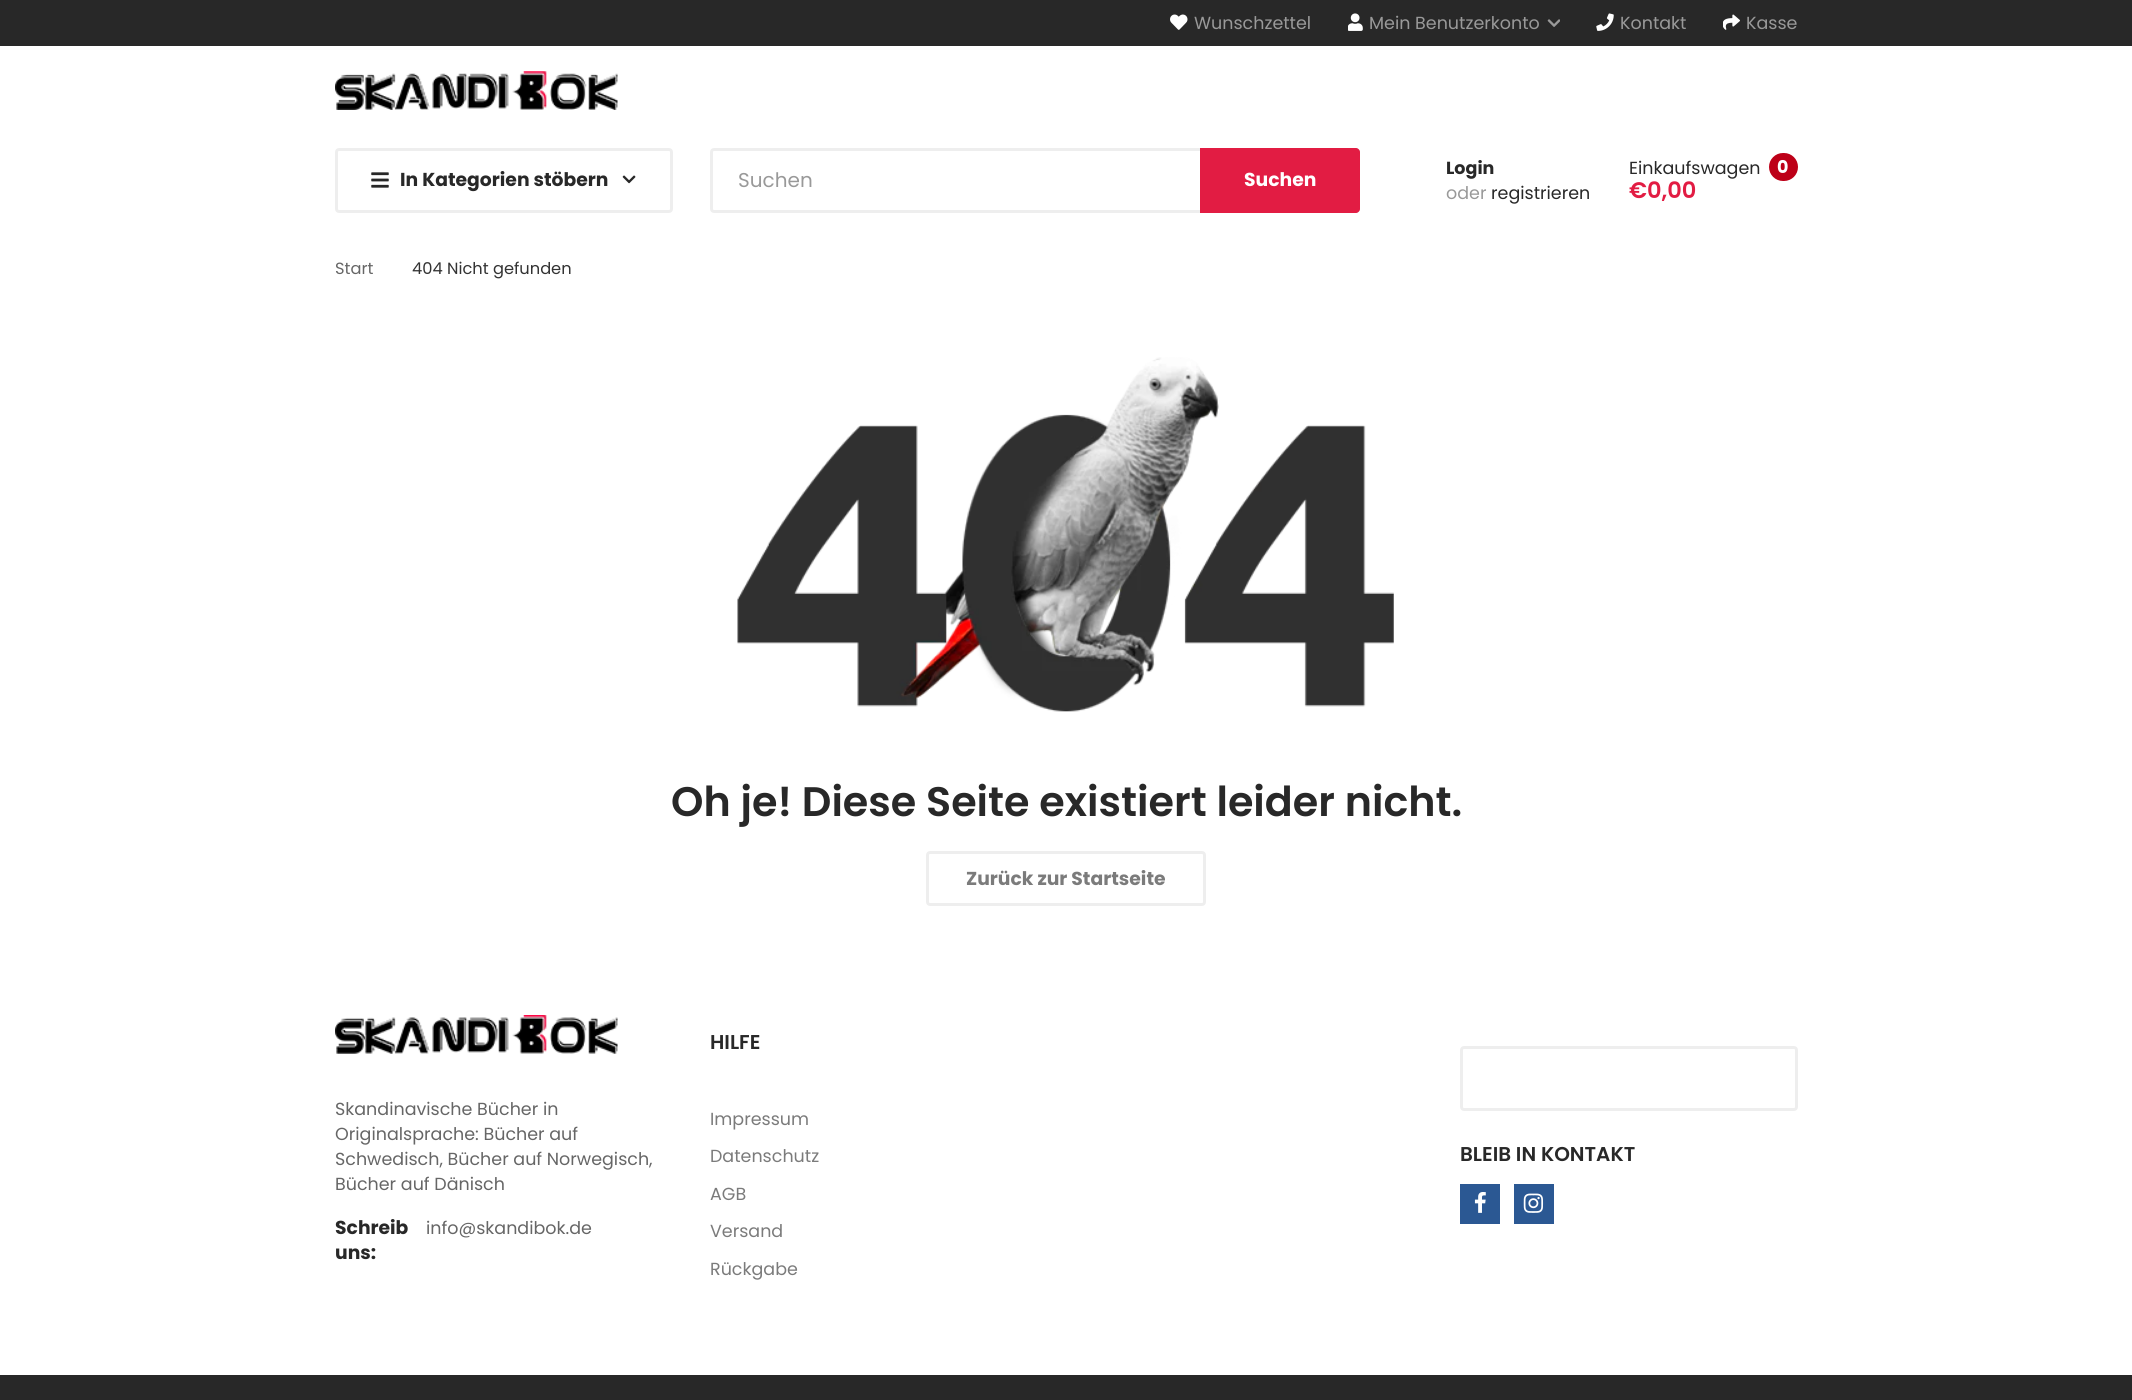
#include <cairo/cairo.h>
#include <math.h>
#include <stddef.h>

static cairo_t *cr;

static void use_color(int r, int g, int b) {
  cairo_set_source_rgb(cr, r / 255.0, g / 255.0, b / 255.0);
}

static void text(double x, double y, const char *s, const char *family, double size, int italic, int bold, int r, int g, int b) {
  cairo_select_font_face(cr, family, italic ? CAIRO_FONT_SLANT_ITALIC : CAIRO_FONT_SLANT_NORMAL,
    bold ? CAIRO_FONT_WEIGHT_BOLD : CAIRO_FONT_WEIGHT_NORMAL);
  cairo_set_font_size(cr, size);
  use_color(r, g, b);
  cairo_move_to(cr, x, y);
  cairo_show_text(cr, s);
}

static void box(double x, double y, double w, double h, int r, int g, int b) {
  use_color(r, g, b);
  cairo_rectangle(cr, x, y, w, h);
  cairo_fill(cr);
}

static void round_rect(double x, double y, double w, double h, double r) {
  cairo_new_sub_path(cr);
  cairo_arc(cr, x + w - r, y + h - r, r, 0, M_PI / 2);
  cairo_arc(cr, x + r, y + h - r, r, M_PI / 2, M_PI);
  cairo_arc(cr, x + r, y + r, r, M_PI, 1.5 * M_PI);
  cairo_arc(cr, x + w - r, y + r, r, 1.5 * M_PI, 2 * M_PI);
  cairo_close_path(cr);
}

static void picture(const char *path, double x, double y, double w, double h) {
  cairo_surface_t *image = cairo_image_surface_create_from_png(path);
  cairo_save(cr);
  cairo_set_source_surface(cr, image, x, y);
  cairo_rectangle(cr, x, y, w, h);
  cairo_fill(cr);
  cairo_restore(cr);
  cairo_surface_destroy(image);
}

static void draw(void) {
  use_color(255, 255, 255);
  cairo_paint(cr);
  box(0, 0, 2132, 46, 40, 40, 40);
  picture("img_01.png", 1170, 14, 18, 16);
  picture("img_02.png", 1348, 13, 15, 18);
  picture("img_03.png", 1547, 19, 13, 8);
  picture("img_04.png", 1596, 13, 18, 18);
  picture("img_05.png", 1723, 14, 17, 16);
  picture("img_06.png", 335, 71, 283, 39);
  round_rect(336.5, 149.5, 335, 62, 2.5);
  use_color(238, 238, 238);
  cairo_set_line_width(cr, 3);
  cairo_stroke(cr);
  picture("img_07.png", 371, 172, 18, 16);
  picture("img_08.png", 622, 175, 14, 9);
  round_rect(711.5, 149.5, 647, 62, 2.5);
  cairo_stroke(cr);
  use_color(226, 28, 67);
  cairo_new_path(cr);
  cairo_move_to(cr, 1200, 148);
  cairo_line_to(cr, 1356, 148);
  cairo_curve_to(cr, 1358, 148, 1360, 150, 1360, 152);
  cairo_line_to(cr, 1360, 209);
  cairo_curve_to(cr, 1360, 211, 1358, 213, 1356, 213);
  cairo_line_to(cr, 1200, 213);
  cairo_close_path(cr);
  cairo_fill(cr);
  use_color(189, 0, 24);
  round_rect(1769, 153, 29, 28, 14);
  cairo_fill(cr);
  picture("img_09.png", 737, 357, 657, 355);
  round_rect(927.5, 852.5, 277, 52, 2.5);
  use_color(238, 238, 238);
  cairo_stroke(cr);
  picture("img_10.png", 335, 1015, 283, 39);
  round_rect(1461.5, 1047.5, 335, 62, 2.5);
  cairo_stroke(cr);
  box(1460, 1184, 40, 40, 43, 88, 147);
  picture("img_11.png", 1474, 1192, 12, 21);
  box(1514, 1184, 40, 40, 43, 88, 147);
  picture("img_12.png", 1523, 1193, 21, 20);
  box(0, 1375, 2132, 25, 40, 40, 40);
  text(1194, 29, "Wunschzettel", "Poppins", 17.5, 0, 0, 153, 153, 153);
  text(1369, 29, "Mein Benutzerkonto", "Poppins", 17.5, 0, 0, 153, 153, 153);
  text(1620, 29, "Kontakt", "Poppins", 17.5, 0, 0, 153, 153, 153);
  text(1746, 29, "Kasse", "Poppins", 17.5, 0, 0, 153, 153, 153);
  text(400, 186, "In Kategorien stöbern", "Poppins", 18.75, 0, 1, 40, 40, 40);
  text(738, 187, "Suchen", "Poppins", 20, 0, 0, 153, 153, 153);
  text(1244, 186, "Suchen", "Poppins", 18.75, 0, 1, 255, 255, 255);
  text(1446, 174, "Login", "Poppins", 17.5, 0, 1, 40, 40, 40);
  text(1446, 199, "oder", "Poppins", 17.5, 0, 0, 153, 153, 153);
  text(1491, 199, "registrieren", "Poppins", 17.5, 0, 0, 40, 40, 40);
  text(1629, 174, "Einkaufswagen", "Poppins", 17.5, 0, 0, 40, 40, 40);
  text(1777, 173, "0", "Poppins", 17.5, 0, 1, 255, 255, 255);
  text(1629, 198, "€0,00", "Poppins SemiBold", 22.5, 0, 0, 226, 28, 67);
  text(335, 274, "Start", "Poppins", 16.25, 0, 0, 102, 102, 102);
  text(412, 274, "404 Nicht gefunden", "Poppins", 16.25, 0, 0, 51, 51, 51);
  text(671, 816, "Oh je! Diese Seite existiert leider nicht.", "Poppins SemiBold", 41.25, 0, 0, 40, 40, 40);
  text(966, 885, "Zurück zur Startseite", "Poppins", 18.75, 0, 1, 123, 123, 123);
  text(335, 1115, "Skandinavische Bücher in", "Poppins", 17.5, 0, 0, 102, 102, 102);
  text(335, 1140, "Originalsprache: Bücher auf", "Poppins", 17.5, 0, 0, 102, 102, 102);
  text(335, 1165, "Schwedisch, Bücher auf Norwegisch,", "Poppins", 17.5, 0, 0, 102, 102, 102);
  text(335, 1190, "Bücher auf Dänisch", "Poppins", 17.5, 0, 0, 102, 102, 102);
  text(335, 1234, "Schreib", "Poppins", 18.75, 0, 1, 40, 40, 40);
  text(335, 1259, "uns:", "Poppins", 18.75, 0, 1, 40, 40, 40);
  text(426, 1234, "info@skandibok.de", "Poppins", 17.5, 0, 0, 102, 102, 102);
  text(710, 1049, "HILFE", "Poppins SemiBold", 20, 0, 0, 40, 40, 40);
  text(710, 1125, "Impressum", "Poppins", 17.5, 0, 0, 123, 123, 123);
  text(710, 1162, "Datenschutz", "Poppins", 17.5, 0, 0, 123, 123, 123);
  text(710, 1200, "AGB", "Poppins", 17.5, 0, 0, 123, 123, 123);
  text(710, 1237, "Versand", "Poppins", 17.5, 0, 0, 123, 123, 123);
  text(710, 1275, "Rückgabe", "Poppins", 17.5, 0, 0, 123, 123, 123);
  text(1460, 1161, "BLEIB IN KONTAKT", "Poppins SemiBold", 20, 0, 0, 40, 40, 40);
}

int main(void) {
  cairo_surface_t *surface = cairo_image_surface_create(CAIRO_FORMAT_RGB24, 2132, 1400);
  cr = cairo_create(surface);
  cairo_font_options_t *options = cairo_font_options_create();
  cairo_font_options_set_hint_metrics(options, CAIRO_HINT_METRICS_OFF);
  cairo_font_options_set_hint_style(options, CAIRO_HINT_STYLE_NONE);
  cairo_set_font_options(cr, options);
  cairo_set_miter_limit(cr, 4);
  draw();
  cairo_surface_write_to_png(surface, "out.png");
  cairo_font_options_destroy(options);
  cairo_destroy(cr);
  cairo_surface_destroy(surface);
  return 0;
}
